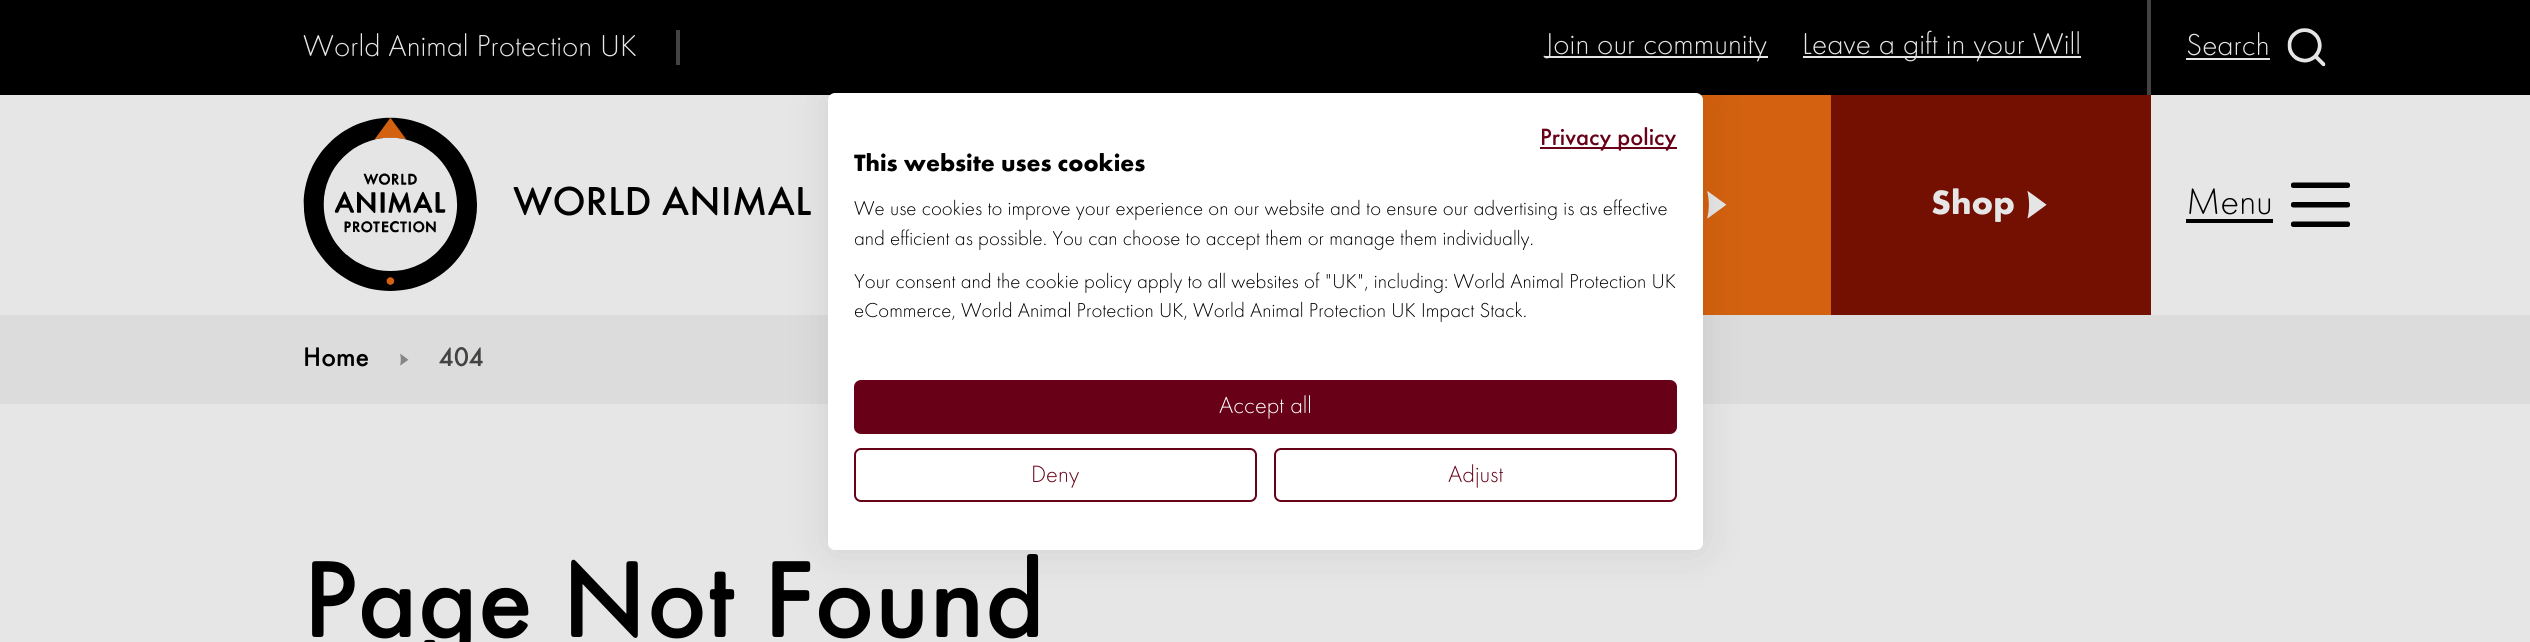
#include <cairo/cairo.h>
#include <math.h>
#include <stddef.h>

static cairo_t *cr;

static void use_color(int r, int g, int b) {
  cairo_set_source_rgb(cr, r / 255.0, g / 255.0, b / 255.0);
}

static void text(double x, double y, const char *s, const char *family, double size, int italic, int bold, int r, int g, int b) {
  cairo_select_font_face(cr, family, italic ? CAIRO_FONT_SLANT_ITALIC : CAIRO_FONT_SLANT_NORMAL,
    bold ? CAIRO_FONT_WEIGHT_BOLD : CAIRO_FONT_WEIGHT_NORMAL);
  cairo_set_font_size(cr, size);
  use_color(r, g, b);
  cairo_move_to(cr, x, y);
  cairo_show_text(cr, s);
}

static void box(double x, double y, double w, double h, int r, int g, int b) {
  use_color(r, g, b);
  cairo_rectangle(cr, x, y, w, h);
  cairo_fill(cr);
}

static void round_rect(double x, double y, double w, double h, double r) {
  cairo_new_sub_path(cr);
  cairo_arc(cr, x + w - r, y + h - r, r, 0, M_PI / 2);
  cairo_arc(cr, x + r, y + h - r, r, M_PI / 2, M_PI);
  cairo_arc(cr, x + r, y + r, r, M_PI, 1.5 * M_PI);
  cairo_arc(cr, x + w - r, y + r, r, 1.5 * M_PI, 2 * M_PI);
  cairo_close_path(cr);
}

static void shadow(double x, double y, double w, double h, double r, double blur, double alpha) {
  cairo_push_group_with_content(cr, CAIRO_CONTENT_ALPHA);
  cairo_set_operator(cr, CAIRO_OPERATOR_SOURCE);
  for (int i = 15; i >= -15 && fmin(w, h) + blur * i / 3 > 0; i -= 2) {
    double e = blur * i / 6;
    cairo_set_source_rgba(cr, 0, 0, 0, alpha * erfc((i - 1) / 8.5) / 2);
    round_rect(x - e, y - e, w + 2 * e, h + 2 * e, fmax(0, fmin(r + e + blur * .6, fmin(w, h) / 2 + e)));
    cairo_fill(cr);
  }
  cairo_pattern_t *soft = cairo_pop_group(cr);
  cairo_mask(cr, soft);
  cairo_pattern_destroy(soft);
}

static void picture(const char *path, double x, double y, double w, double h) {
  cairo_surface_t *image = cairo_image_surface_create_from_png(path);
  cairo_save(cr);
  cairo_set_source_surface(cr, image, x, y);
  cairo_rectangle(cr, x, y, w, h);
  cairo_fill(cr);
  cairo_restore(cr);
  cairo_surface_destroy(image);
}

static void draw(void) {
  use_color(230, 230, 230);
  cairo_paint(cr);
  box(0, 0, 2530, 95, 0, 0, 0);
  box(676, 30, 4, 35, 67, 67, 66);
  box(1545, 56, 223, 2, 230, 230, 230);
  box(1803, 56, 278, 2, 230, 230, 230);
  box(2147, 0, 4, 95, 67, 67, 66);
  box(2186, 58, 84, 2, 230, 230, 230);
  picture("img_01.png", 2287, 28, 39, 39);
  picture("img_02.png", 303, 117, 174, 174);
  box(1701, 95, 130, 220, 211, 97, 15);
  picture("img_03.png", 1707, 191, 20, 28);
  box(1831, 95, 320, 220, 115, 16, 2);
  picture("img_04.png", 2027, 191, 20, 28);
  box(2186, 219, 87, 4, 0, 0, 0);
  picture("img_05.png", 2291, 182, 59, 45);
  box(0, 315, 2530, 89, 220, 220, 221);
  picture("img_06.png", 400, 354, 9, 12);
  use_color(0, 0, 0);
  shadow(828, 93, 875, 457, 7, 21, 0.1);
  use_color(255, 255, 255);
  round_rect(828, 93, 875, 457, 7);
  cairo_fill(cr);
  box(1540, 147, 137, 2, 104, 1, 24);
  round_rect(855, 381, 821, 52, 6);
  cairo_fill_preserve(cr);
  cairo_stroke(cr);
  round_rect(855, 449, 401, 52, 6);
  cairo_stroke(cr);
  round_rect(1275, 449, 401, 52, 6);
  cairo_stroke(cr);
  text(303, 56, "World Animal Protection UK", "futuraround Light", 31.5, 0, 0, 230, 230, 230);
  text(1545, 54, "Join our community", "futuraround Light", 31.5, 0, 0, 230, 230, 230);
  text(1802, 54, "Leave a gift in your Will", "futuraround Light", 31.5, 0, 0, 230, 230, 230);
  text(2186, 55, "Search", "futuraround Light", 31.5, 0, 0, 230, 230, 230);
  text(513, 215, "WORLD ANIMAL", "futuraround Medium", 42, 0, 0, 0, 0, 0);
  text(1931, 214, "Shop", "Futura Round", 35, 0, 1, 230, 230, 230);
  text(2186, 214, "Menu", "futuraround Light", 38.5, 0, 0, 0, 0, 0);
  text(303, 366, "Home", "futuraround Medium", 28, 0, 0, 0, 0, 0);
  text(439, 366, "404", "futuraround Medium", 28, 0, 0, 67, 67, 66);
  text(1540, 145, "Privacy policy", "futuraround Medium", 24.5, 0, 0, 104, 1, 24);
  text(854, 171, "This website uses cookies", "Futura Round", 24.5, 0, 1, 0, 0, 0);
  text(854, 215, "We use cookies to improve your experience on our website and to ensure our advertising is as effective", "futuraround Light", 21, 0, 0, 0, 0, 0);
  text(854, 245, "and efficient as possible. You can choose to accept them or manage them individually.", "futuraround Light", 21, 0, 0, 0, 0, 0);
  text(854, 288, "Your consent and the cookie policy apply to all websites of \"UK\", including: World Animal Protection UK", "futuraround Light", 21, 0, 0, 0, 0, 0);
  text(854, 317, "eCommerce, World Animal Protection UK, World Animal Protection UK Impact Stack.", "futuraround Light", 21, 0, 0, 0, 0, 0);
  text(1219, 413, "Accept all", "futuraround Light", 24.5, 0, 0, 255, 255, 255);
  text(1031, 482, "Deny", "futuraround Light", 24.5, 0, 0, 104, 1, 24);
  text(1448, 482, "Adjust", "futuraround Light", 24.5, 0, 0, 104, 1, 24);
  text(303, 637, "Page Not Found", "futuraround Medium", 113.75, 0, 0, 0, 0, 0);
}

int main(void) {
  cairo_surface_t *surface = cairo_image_surface_create(CAIRO_FORMAT_RGB24, 2530, 642);
  cr = cairo_create(surface);
  cairo_font_options_t *options = cairo_font_options_create();
  cairo_font_options_set_hint_metrics(options, CAIRO_HINT_METRICS_OFF);
  cairo_font_options_set_hint_style(options, CAIRO_HINT_STYLE_NONE);
  cairo_set_font_options(cr, options);
  cairo_set_miter_limit(cr, 4);
  draw();
  cairo_surface_write_to_png(surface, "out.png");
  cairo_font_options_destroy(options);
  cairo_destroy(cr);
  cairo_surface_destroy(surface);
  return 0;
}
